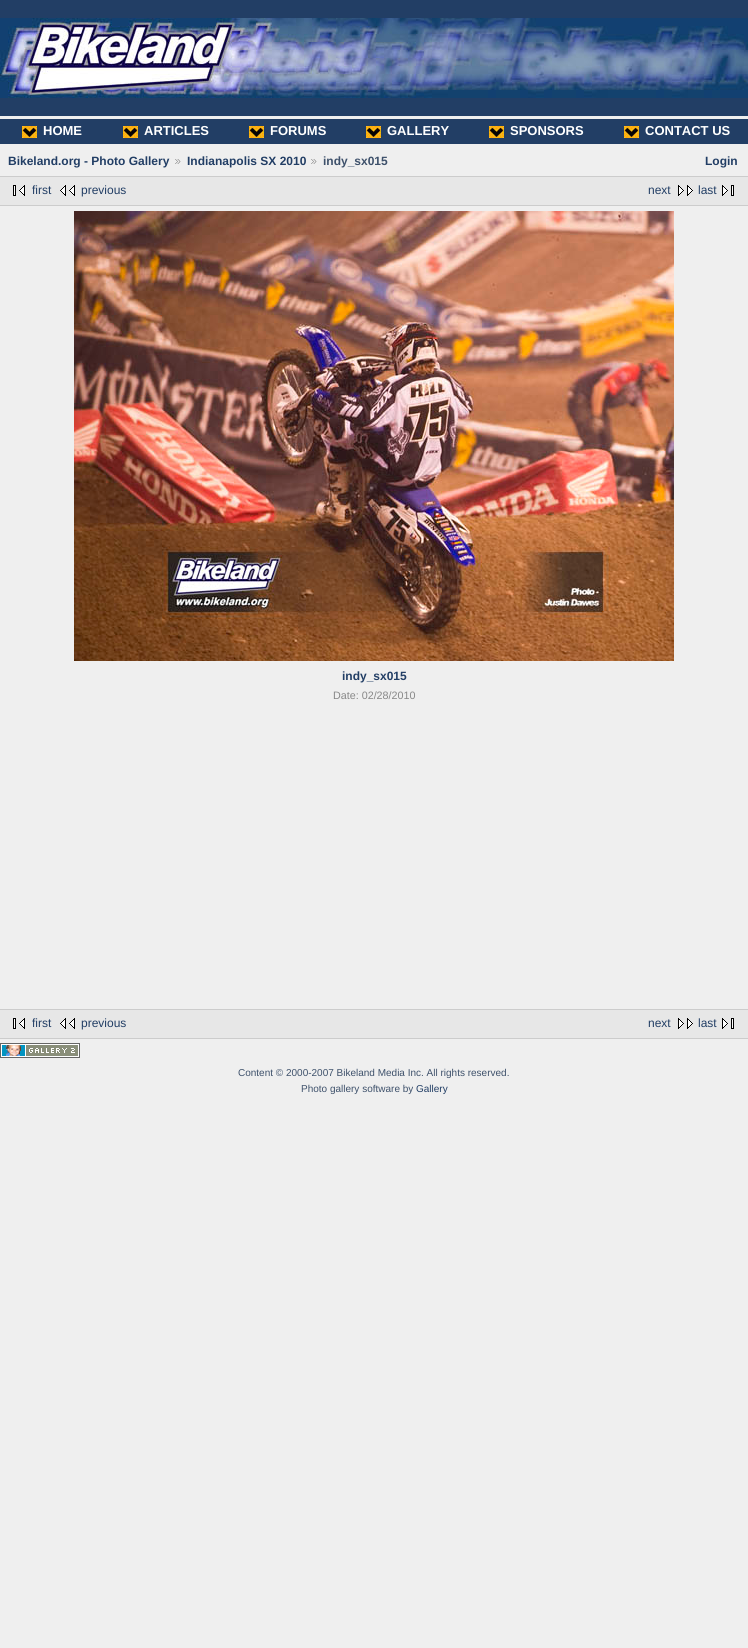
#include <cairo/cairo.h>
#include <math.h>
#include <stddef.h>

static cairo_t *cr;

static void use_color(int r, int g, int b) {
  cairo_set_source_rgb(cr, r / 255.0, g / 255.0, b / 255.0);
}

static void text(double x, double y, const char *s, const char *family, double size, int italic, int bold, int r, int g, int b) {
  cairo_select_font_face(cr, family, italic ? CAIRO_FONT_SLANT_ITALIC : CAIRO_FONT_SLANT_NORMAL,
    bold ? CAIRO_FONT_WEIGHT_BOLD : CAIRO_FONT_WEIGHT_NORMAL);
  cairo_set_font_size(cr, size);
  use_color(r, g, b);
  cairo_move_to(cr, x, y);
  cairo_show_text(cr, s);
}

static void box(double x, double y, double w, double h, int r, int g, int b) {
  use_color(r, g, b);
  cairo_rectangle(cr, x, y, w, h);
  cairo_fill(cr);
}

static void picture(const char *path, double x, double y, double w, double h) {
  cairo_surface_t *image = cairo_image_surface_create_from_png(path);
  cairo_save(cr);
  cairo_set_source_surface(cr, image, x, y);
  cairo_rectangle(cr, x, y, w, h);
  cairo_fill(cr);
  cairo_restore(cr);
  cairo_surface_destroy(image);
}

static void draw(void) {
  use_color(239, 239, 239);
  cairo_paint(cr);
  box(0, 0, 748, 116, 34, 62, 101);
  picture("img_01.png", 0, 18, 748, 80);
  box(0, 119, 748, 25, 34, 62, 101);
  picture("img_02.png", 22, 126, 15, 12);
  picture("img_02.png", 123, 126, 15, 12);
  picture("img_02.png", 249, 126, 15, 12);
  picture("img_02.png", 366, 126, 15, 12);
  picture("img_02.png", 489, 126, 15, 12);
  picture("img_02.png", 624, 126, 15, 12);
  box(0, 176, 748, 1, 204, 204, 204);
  picture("img_03.png", 175, 159, 6, 5);
  picture("img_03.png", 311, 159, 6, 5);
  box(0, 177, 748, 28, 231, 231, 231);
  box(0, 205, 748, 1, 204, 204, 204);
  picture("img_04.png", 13, 185, 12, 11);
  picture("img_05.png", 60, 185, 15, 11);
  picture("img_06.png", 678, 185, 15, 11);
  picture("img_07.png", 722, 185, 12, 11);
  picture("img_08.png", 74, 211, 600, 450);
  box(0, 1010, 748, 28, 231, 231, 231);
  box(0, 1009, 748, 1, 204, 204, 204);
  box(0, 1038, 748, 1, 204, 204, 204);
  picture("img_04.png", 13, 1018, 12, 11);
  picture("img_05.png", 60, 1018, 15, 11);
  picture("img_06.png", 678, 1018, 15, 11);
  picture("img_07.png", 722, 1018, 12, 11);
  picture("img_09.png", 0, 1043, 80, 15);
  text(43, 135, "HOME", "Liberation Sans", 13, 0, 1, 255, 255, 255);
  text(144, 135, "ARTICLES", "Liberation Sans", 13, 0, 1, 255, 255, 255);
  text(270, 135, "FORUMS", "Liberation Sans", 13, 0, 1, 255, 255, 255);
  text(387, 135, "GALLERY", "Liberation Sans", 13, 0, 1, 255, 255, 255);
  text(510, 135, "SPONSORS", "Liberation Sans", 13, 0, 1, 255, 255, 255);
  text(645, 135, "CONTACT US", "Liberation Sans", 13, 0, 1, 255, 255, 255);
  text(8, 165, "Bikeland.org - Photo Gallery", "Liberation Sans", 12, 0, 1, 34, 62, 101);
  text(187, 165, "Indianapolis SX 2010", "Liberation Sans", 12, 0, 1, 34, 62, 101);
  text(323, 165, "indy_sx015", "Liberation Sans", 12, 0, 1, 62, 81, 107);
  text(705, 165, "Login", "Liberation Sans", 12, 0, 1, 34, 62, 101);
  text(32, 194, "first", "Liberation Sans", 12, 0, 0, 34, 62, 101);
  text(81, 194, "previous", "Liberation Sans", 12, 0, 0, 34, 62, 101);
  text(648, 194, "next", "Liberation Sans", 12, 0, 0, 34, 62, 101);
  text(698, 194, "last", "Liberation Sans", 12, 0, 0, 34, 62, 101);
  text(342, 680, "indy_sx015", "Liberation Sans", 12, 0, 1, 34, 62, 101);
  text(333, 699, "Date: 02/28/2010", "Liberation Sans", 10.75, 0, 0, 136, 136, 136);
  text(32, 1027, "first", "Liberation Sans", 12, 0, 0, 34, 62, 101);
  text(81, 1027, "previous", "Liberation Sans", 12, 0, 0, 34, 62, 101);
  text(648, 1027, "next", "Liberation Sans", 12, 0, 0, 34, 62, 101);
  text(698, 1027, "last", "Liberation Sans", 12, 0, 0, 34, 62, 101);
  text(238, 1076, "Content © 2000-2007 Bikeland Media Inc. All rights reserved.", "Liberation Sans", 10, 0, 0, 62, 81, 107);
  text(301, 1092, "Photo gallery software by", "Liberation Sans", 10, 0, 0, 62, 81, 107);
  text(416, 1092, "Gallery", "Liberation Sans", 10, 0, 0, 34, 62, 101);
}

int main(void) {
  cairo_surface_t *surface = cairo_image_surface_create(CAIRO_FORMAT_RGB24, 748, 1648);
  cr = cairo_create(surface);
  cairo_font_options_t *options = cairo_font_options_create();
  cairo_font_options_set_hint_metrics(options, CAIRO_HINT_METRICS_OFF);
  cairo_font_options_set_hint_style(options, CAIRO_HINT_STYLE_NONE);
  cairo_set_font_options(cr, options);
  cairo_set_miter_limit(cr, 4);
  draw();
  cairo_surface_write_to_png(surface, "out.png");
  cairo_font_options_destroy(options);
  cairo_destroy(cr);
  cairo_surface_destroy(surface);
  return 0;
}
